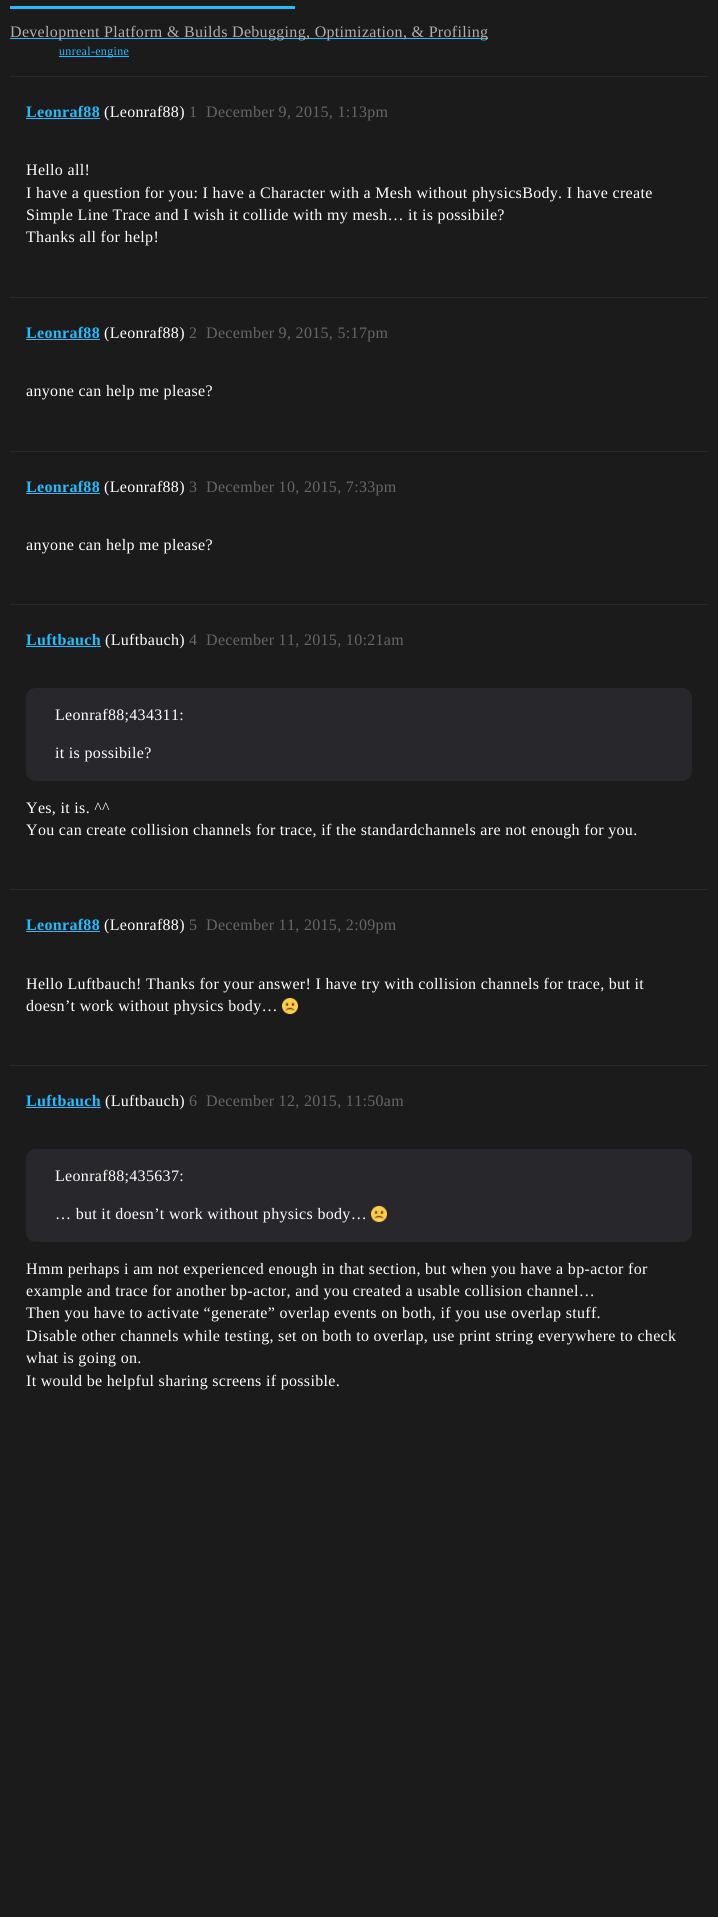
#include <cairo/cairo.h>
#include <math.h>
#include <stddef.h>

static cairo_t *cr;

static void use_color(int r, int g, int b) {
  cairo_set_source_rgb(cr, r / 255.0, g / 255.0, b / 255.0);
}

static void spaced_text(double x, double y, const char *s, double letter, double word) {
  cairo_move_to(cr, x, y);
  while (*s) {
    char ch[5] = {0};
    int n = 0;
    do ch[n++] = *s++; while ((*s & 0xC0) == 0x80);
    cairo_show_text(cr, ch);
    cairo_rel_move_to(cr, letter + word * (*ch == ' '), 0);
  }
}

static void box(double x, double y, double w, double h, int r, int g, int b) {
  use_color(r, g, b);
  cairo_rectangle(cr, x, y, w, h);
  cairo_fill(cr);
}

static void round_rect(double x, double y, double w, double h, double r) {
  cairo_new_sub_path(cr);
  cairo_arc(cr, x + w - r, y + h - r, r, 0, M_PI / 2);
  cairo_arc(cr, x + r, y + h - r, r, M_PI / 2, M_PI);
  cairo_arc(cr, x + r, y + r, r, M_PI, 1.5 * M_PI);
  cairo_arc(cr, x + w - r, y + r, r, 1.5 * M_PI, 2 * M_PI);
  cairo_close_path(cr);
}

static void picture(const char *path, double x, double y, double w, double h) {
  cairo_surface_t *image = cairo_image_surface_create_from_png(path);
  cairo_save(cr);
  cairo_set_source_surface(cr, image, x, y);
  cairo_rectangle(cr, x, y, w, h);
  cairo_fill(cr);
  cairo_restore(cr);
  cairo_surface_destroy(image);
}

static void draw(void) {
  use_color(27, 27, 27);
  cairo_paint(cr);
  box(10, 6, 285, 3, 38, 187, 255);
  box(10, 38, 478, 1, 38, 187, 255);
  box(59, 56, 70, 1, 38, 187, 255);
  box(10, 76, 698, 1, 40, 40, 44);
  box(26, 118, 74, 1, 38, 187, 255);
  box(10, 297, 698, 1, 40, 40, 44);
  box(26, 339, 74, 1, 38, 187, 255);
  box(10, 451, 698, 1, 40, 40, 44);
  box(26, 493, 74, 1, 38, 187, 255);
  box(10, 604, 698, 1, 40, 40, 44);
  box(26, 646, 75, 1, 38, 187, 255);
  use_color(40, 40, 44);
  cairo_new_path(cr);
  cairo_move_to(cr, 36, 688);
  cairo_line_to(cr, 682, 688);
  cairo_curve_to(cr, 687.5, 688, 692, 692.5, 692, 698);
  cairo_line_to(cr, 692, 726);
  cairo_line_to(cr, 26, 726);
  cairo_line_to(cr, 26, 698);
  cairo_curve_to(cr, 26, 692.5, 30.5, 688, 36, 688);
  cairo_close_path(cr);
  cairo_fill(cr);
  cairo_save(cr);
  round_rect(26, 688, 666, 93, 10);
  cairo_clip(cr);
  box(26, 688, 5, 38, 39, 39, 42);
  cairo_restore(cr);
  cairo_new_path(cr);
  cairo_move_to(cr, 26, 726);
  cairo_line_to(cr, 692, 726);
  cairo_line_to(cr, 692, 771);
  cairo_curve_to(cr, 692, 776.5, 687.5, 781, 682, 781);
  cairo_line_to(cr, 36, 781);
  cairo_curve_to(cr, 30.5, 781, 26, 776.5, 26, 771);
  cairo_close_path(cr);
  cairo_fill(cr);
  cairo_save(cr);
  round_rect(26, 688, 666, 93, 10);
  cairo_clip(cr);
  box(26, 726, 5, 55, 39, 39, 42);
  cairo_restore(cr);
  box(10, 889, 698, 1, 40, 40, 44);
  box(26, 931, 74, 1, 38, 187, 255);
  picture("img_01.png", 282, 998, 16, 16);
  box(10, 1065, 698, 1, 40, 40, 44);
  box(26, 1107, 75, 1, 38, 187, 255);
  use_color(40, 40, 44);
  cairo_new_path(cr);
  cairo_move_to(cr, 36, 1149);
  cairo_line_to(cr, 682, 1149);
  cairo_curve_to(cr, 687.5, 1149, 692, 1153.5, 692, 1159);
  cairo_line_to(cr, 692, 1187);
  cairo_line_to(cr, 26, 1187);
  cairo_line_to(cr, 26, 1159);
  cairo_curve_to(cr, 26, 1153.5, 30.5, 1149, 36, 1149);
  cairo_close_path(cr);
  cairo_fill(cr);
  cairo_save(cr);
  round_rect(26, 1149, 666, 93, 10);
  cairo_clip(cr);
  box(26, 1149, 5, 38, 39, 39, 42);
  cairo_restore(cr);
  cairo_new_path(cr);
  cairo_move_to(cr, 26, 1187);
  cairo_line_to(cr, 692, 1187);
  cairo_line_to(cr, 692, 1232);
  cairo_curve_to(cr, 692, 1237.5, 687.5, 1242, 682, 1242);
  cairo_line_to(cr, 36, 1242);
  cairo_curve_to(cr, 30.5, 1242, 26, 1237.5, 26, 1232);
  cairo_close_path(cr);
  cairo_fill(cr);
  cairo_save(cr);
  round_rect(26, 1149, 666, 93, 10);
  cairo_clip(cr);
  box(26, 1187, 5, 55, 39, 39, 42);
  cairo_restore(cr);
  picture("img_02.png", 371, 1206, 16, 16);
  cairo_select_font_face(cr, "Liberation Serif", CAIRO_FONT_SLANT_NORMAL, CAIRO_FONT_WEIGHT_NORMAL);
  cairo_set_font_size(cr, 16);
  use_color(175, 175, 176);
  spaced_text(10, 37, "Development", 0.32, 0);
  spaced_text(104, 37, "Platform & Builds", 0.32, 0);
  spaced_text(232, 37, "Debugging, Optimization, & Profiling", 0.32, 0);
  cairo_set_font_size(cr, 12);
  use_color(38, 187, 255);
  spaced_text(59, 55, "unreal-engine", 0.32, 0);
  cairo_select_font_face(cr, "Liberation Serif", CAIRO_FONT_SLANT_NORMAL, CAIRO_FONT_WEIGHT_BOLD);
  cairo_set_font_size(cr, 16);
  spaced_text(26, 117, "Leonraf88", 0.32, 0);
  cairo_select_font_face(cr, "Liberation Serif", CAIRO_FONT_SLANT_NORMAL, CAIRO_FONT_WEIGHT_NORMAL);
  use_color(255, 255, 255);
  spaced_text(104, 117, "(Leonraf88)", 0.32, 0);
  use_color(102, 102, 102);
  spaced_text(189, 117, "1", 0.32, 0);
  spaced_text(206, 117, "December 9, 2015, 1:13pm", 0.32, 0);
  use_color(255, 255, 255);
  spaced_text(26, 175, "Hello all!", 0.32, 0);
  spaced_text(26, 198, "I have a question for you: I have a Character with a Mesh without physicsBody. I have create", 0.32, 0);
  spaced_text(26, 220, "Simple Line Trace and I wish it collide with my mesh… it is possibile?", 0.32, 0);
  spaced_text(26, 242, "Thanks all for help!", 0.32, 0);
  cairo_select_font_face(cr, "Liberation Serif", CAIRO_FONT_SLANT_NORMAL, CAIRO_FONT_WEIGHT_BOLD);
  use_color(38, 187, 255);
  spaced_text(26, 338, "Leonraf88", 0.32, 0);
  cairo_select_font_face(cr, "Liberation Serif", CAIRO_FONT_SLANT_NORMAL, CAIRO_FONT_WEIGHT_NORMAL);
  use_color(255, 255, 255);
  spaced_text(104, 338, "(Leonraf88)", 0.32, 0);
  use_color(102, 102, 102);
  spaced_text(189, 338, "2", 0.32, 0);
  spaced_text(206, 338, "December 9, 2015, 5:17pm", 0.32, 0);
  use_color(255, 255, 255);
  spaced_text(26, 396, "anyone can help me please?", 0.32, 0);
  cairo_select_font_face(cr, "Liberation Serif", CAIRO_FONT_SLANT_NORMAL, CAIRO_FONT_WEIGHT_BOLD);
  use_color(38, 187, 255);
  spaced_text(26, 492, "Leonraf88", 0.32, 0);
  cairo_select_font_face(cr, "Liberation Serif", CAIRO_FONT_SLANT_NORMAL, CAIRO_FONT_WEIGHT_NORMAL);
  use_color(255, 255, 255);
  spaced_text(104, 492, "(Leonraf88)", 0.32, 0);
  use_color(102, 102, 102);
  spaced_text(189, 492, "3", 0.32, 0);
  spaced_text(206, 492, "December 10, 2015, 7:33pm", 0.32, 0);
  use_color(255, 255, 255);
  spaced_text(26, 550, "anyone can help me please?", 0.32, 0);
  cairo_select_font_face(cr, "Liberation Serif", CAIRO_FONT_SLANT_NORMAL, CAIRO_FONT_WEIGHT_BOLD);
  use_color(38, 187, 255);
  spaced_text(26, 645, "Luftbauch", 0.32, 0);
  cairo_select_font_face(cr, "Liberation Serif", CAIRO_FONT_SLANT_NORMAL, CAIRO_FONT_WEIGHT_NORMAL);
  use_color(255, 255, 255);
  spaced_text(105, 645, "(Luftbauch)", 0.32, 0);
  use_color(102, 102, 102);
  spaced_text(189, 645, "4", 0.32, 0);
  spaced_text(206, 645, "December 11, 2015, 10:21am", 0.32, 0);
  use_color(255, 255, 255);
  spaced_text(55, 720, "Leonraf88;434311:", 0.32, 0);
  spaced_text(55, 758, "it is possibile?", 0.32, 0);
  spaced_text(26, 813, "Yes, it is. ^^", 0.32, 0);
  spaced_text(26, 835, "You can create collision channels for trace, if the standardchannels are not enough for you.", 0.32, 0);
  cairo_select_font_face(cr, "Liberation Serif", CAIRO_FONT_SLANT_NORMAL, CAIRO_FONT_WEIGHT_BOLD);
  use_color(38, 187, 255);
  spaced_text(26, 930, "Leonraf88", 0.32, 0);
  cairo_select_font_face(cr, "Liberation Serif", CAIRO_FONT_SLANT_NORMAL, CAIRO_FONT_WEIGHT_NORMAL);
  use_color(255, 255, 255);
  spaced_text(104, 930, "(Leonraf88)", 0.32, 0);
  use_color(102, 102, 102);
  spaced_text(189, 930, "5", 0.32, 0);
  spaced_text(206, 930, "December 11, 2015, 2:09pm", 0.32, 0);
  use_color(255, 255, 255);
  spaced_text(26, 989, "Hello Luftbauch! Thanks for your answer! I have try with collision channels for trace, but it", 0.32, 0);
  spaced_text(26, 1011, "doesn’t work without physics body…", 0.32, 0);
  cairo_select_font_face(cr, "Liberation Serif", CAIRO_FONT_SLANT_NORMAL, CAIRO_FONT_WEIGHT_BOLD);
  use_color(38, 187, 255);
  spaced_text(26, 1106, "Luftbauch", 0.32, 0);
  cairo_select_font_face(cr, "Liberation Serif", CAIRO_FONT_SLANT_NORMAL, CAIRO_FONT_WEIGHT_NORMAL);
  use_color(255, 255, 255);
  spaced_text(105, 1106, "(Luftbauch)", 0.32, 0);
  use_color(102, 102, 102);
  spaced_text(189, 1106, "6", 0.32, 0);
  spaced_text(206, 1106, "December 12, 2015, 11:50am", 0.32, 0);
  use_color(255, 255, 255);
  spaced_text(55, 1181, "Leonraf88;435637:", 0.32, 0);
  spaced_text(55, 1219, "… but it doesn’t work without physics body…", 0.32, 0);
  spaced_text(26, 1274, "Hmm perhaps i am not experienced enough in that section, but when you have a bp-actor for", 0.32, 0);
  spaced_text(26, 1296, "example and trace for another bp-actor, and you created a usable collision channel…", 0.32, 0);
  spaced_text(26, 1318, "Then you have to activate “generate” overlap events on both, if you use overlap stuff.", 0.32, 0);
  spaced_text(26, 1341, "Disable other channels while testing, set on both to overlap, use print string everywhere to check", 0.32, 0);
  spaced_text(26, 1363, "what is going on.", 0.32, 0);
  spaced_text(26, 1386, "It would be helpful sharing screens if possible.", 0.32, 0);
}

int main(void) {
  cairo_surface_t *surface = cairo_image_surface_create(CAIRO_FORMAT_RGB24, 718, 1917);
  cr = cairo_create(surface);
  cairo_font_options_t *options = cairo_font_options_create();
  cairo_font_options_set_hint_metrics(options, CAIRO_HINT_METRICS_OFF);
  cairo_font_options_set_hint_style(options, CAIRO_HINT_STYLE_NONE);
  cairo_set_font_options(cr, options);
  cairo_set_miter_limit(cr, 4);
  draw();
  cairo_surface_write_to_png(surface, "out.png");
  cairo_font_options_destroy(options);
  cairo_destroy(cr);
  cairo_surface_destroy(surface);
  return 0;
}
